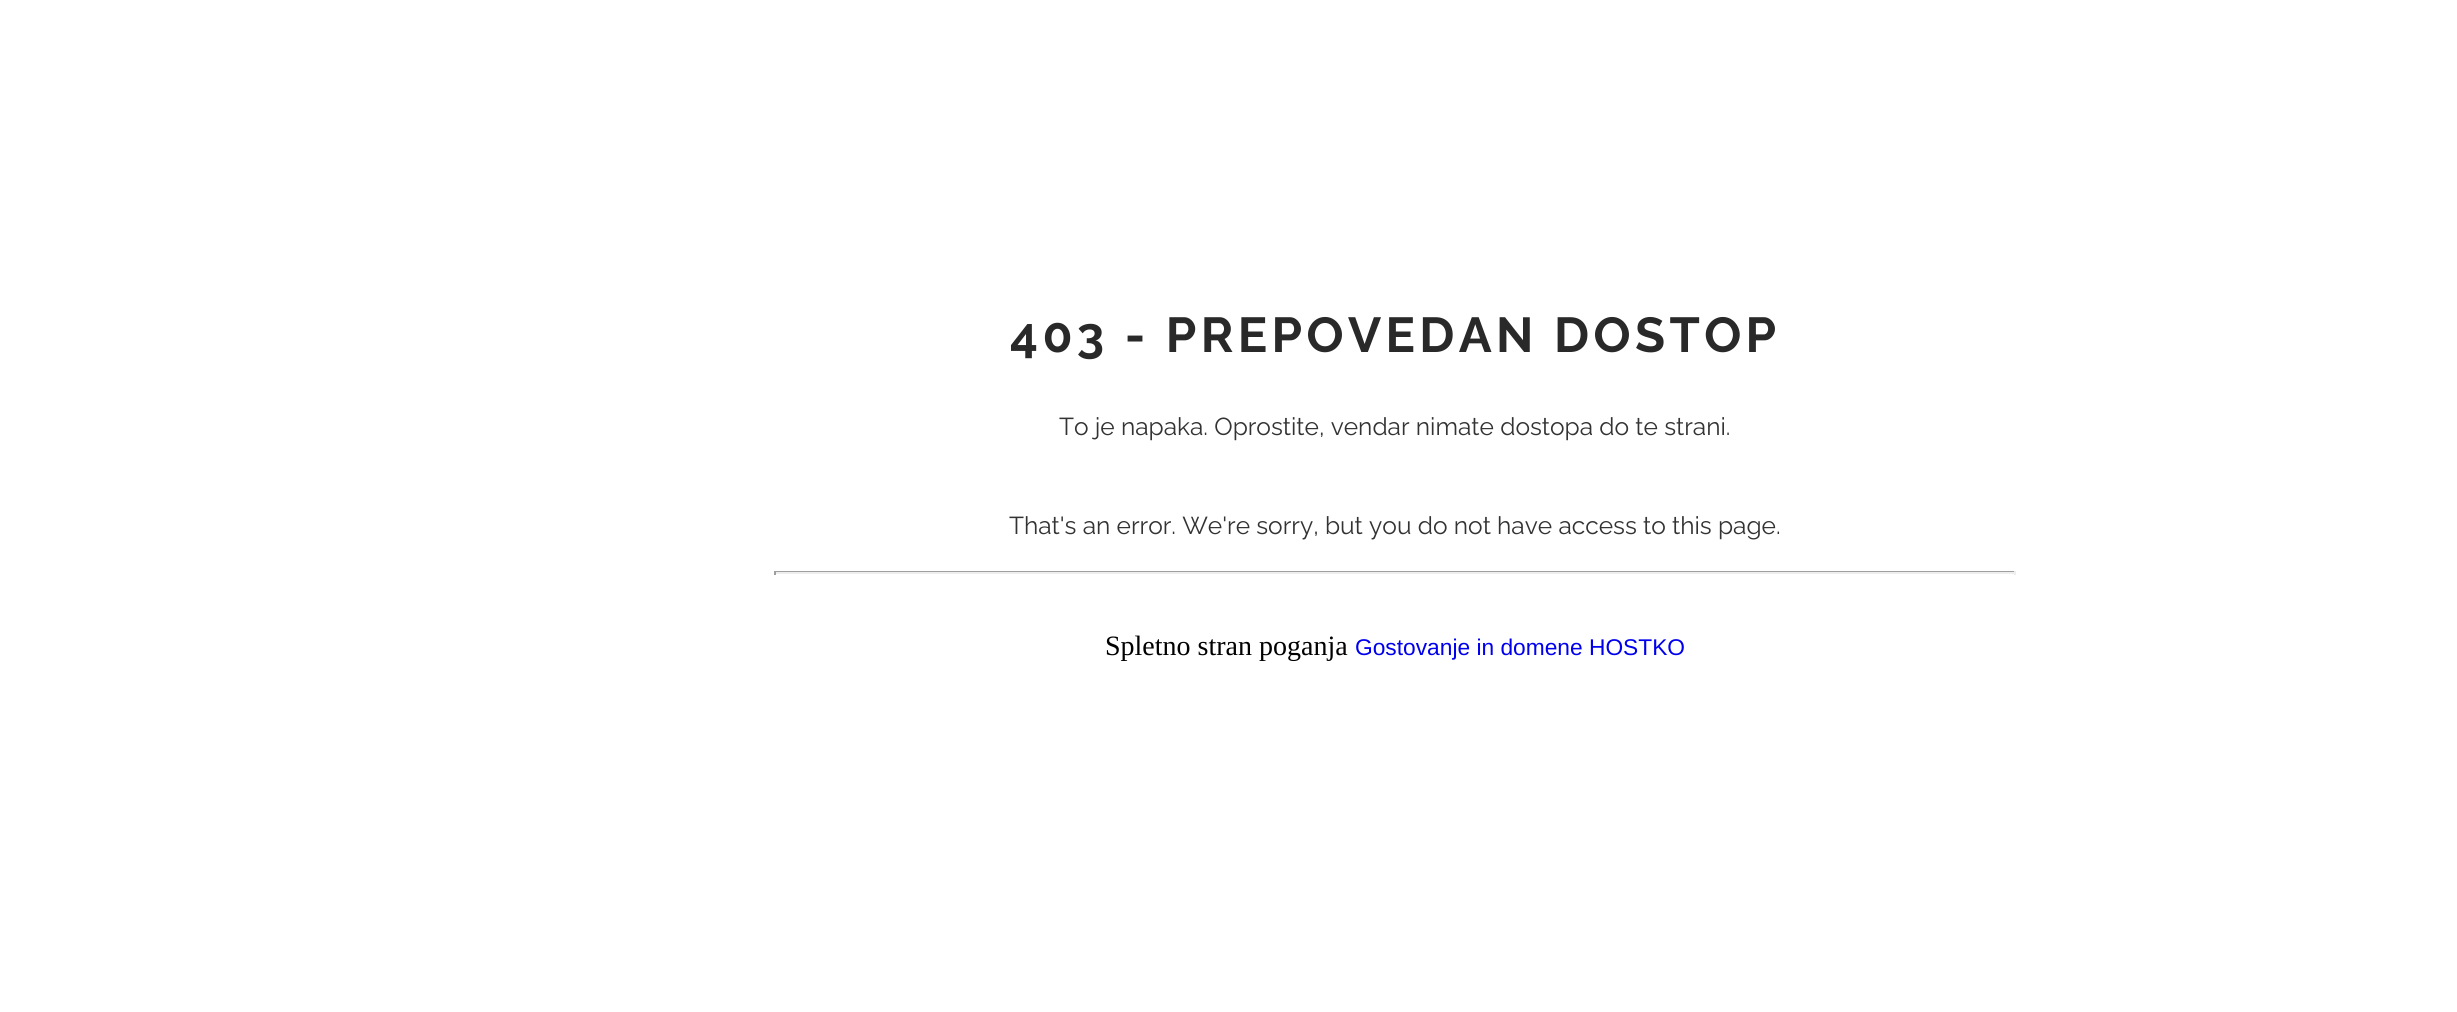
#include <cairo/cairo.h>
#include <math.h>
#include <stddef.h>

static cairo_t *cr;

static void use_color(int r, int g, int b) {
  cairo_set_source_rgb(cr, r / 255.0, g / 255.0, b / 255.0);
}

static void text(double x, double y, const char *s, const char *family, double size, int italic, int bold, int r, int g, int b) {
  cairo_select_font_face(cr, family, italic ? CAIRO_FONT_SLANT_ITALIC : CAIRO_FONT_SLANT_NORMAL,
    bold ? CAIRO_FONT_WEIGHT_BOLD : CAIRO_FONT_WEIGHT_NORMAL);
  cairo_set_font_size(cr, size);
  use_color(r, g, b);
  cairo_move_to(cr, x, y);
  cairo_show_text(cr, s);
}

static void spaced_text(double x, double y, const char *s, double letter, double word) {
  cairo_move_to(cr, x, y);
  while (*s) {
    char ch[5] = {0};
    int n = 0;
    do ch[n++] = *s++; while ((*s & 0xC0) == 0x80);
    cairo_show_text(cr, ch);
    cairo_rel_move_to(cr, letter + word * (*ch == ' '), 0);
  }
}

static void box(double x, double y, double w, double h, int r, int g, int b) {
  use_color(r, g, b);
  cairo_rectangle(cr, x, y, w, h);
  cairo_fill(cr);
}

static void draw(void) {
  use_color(255, 255, 255);
  cairo_paint(cr);
  box(774, 571, 1242, 1, 159, 159, 159);
  box(2014, 571, 2, 4, 238, 238, 238);
  box(774, 572, 1242, 2, 238, 238, 238);
  box(774, 571, 2, 4, 159, 159, 159);
  cairo_select_font_face(cr, "Raleway", CAIRO_FONT_SLANT_NORMAL, CAIRO_FONT_WEIGHT_BOLD);
  cairo_set_font_size(cr, 49);
  use_color(41, 41, 41);
  spaced_text(1010, 352, "403 - PREPOVEDAN DOSTOP", 4.4, 0);
  text(1059, 435, "To je napaka. Oprostite, vendar nimate dostopa do te strani.", "Raleway", 24.5, 0, 0, 51, 51, 51);
  text(1009, 534, "That's an error. We're sorry, but you do not have access to this page.", "Raleway", 24.5, 0, 0, 51, 51, 51);
  text(1105, 655, "Spletno stran poganja", "Liberation Serif", 28, 0, 0, 0, 0, 0);
  text(1355, 655, "Gostovanje in domene HOSTKO", "Liberation Sans", 22.75, 0, 0, 0, 0, 238);
}

int main(void) {
  cairo_surface_t *surface = cairo_image_surface_create(CAIRO_FORMAT_RGB24, 2457, 1012);
  cr = cairo_create(surface);
  cairo_font_options_t *options = cairo_font_options_create();
  cairo_font_options_set_hint_metrics(options, CAIRO_HINT_METRICS_OFF);
  cairo_font_options_set_hint_style(options, CAIRO_HINT_STYLE_NONE);
  cairo_set_font_options(cr, options);
  cairo_set_miter_limit(cr, 4);
  draw();
  cairo_surface_write_to_png(surface, "out.png");
  cairo_font_options_destroy(options);
  cairo_destroy(cr);
  cairo_surface_destroy(surface);
  return 0;
}
